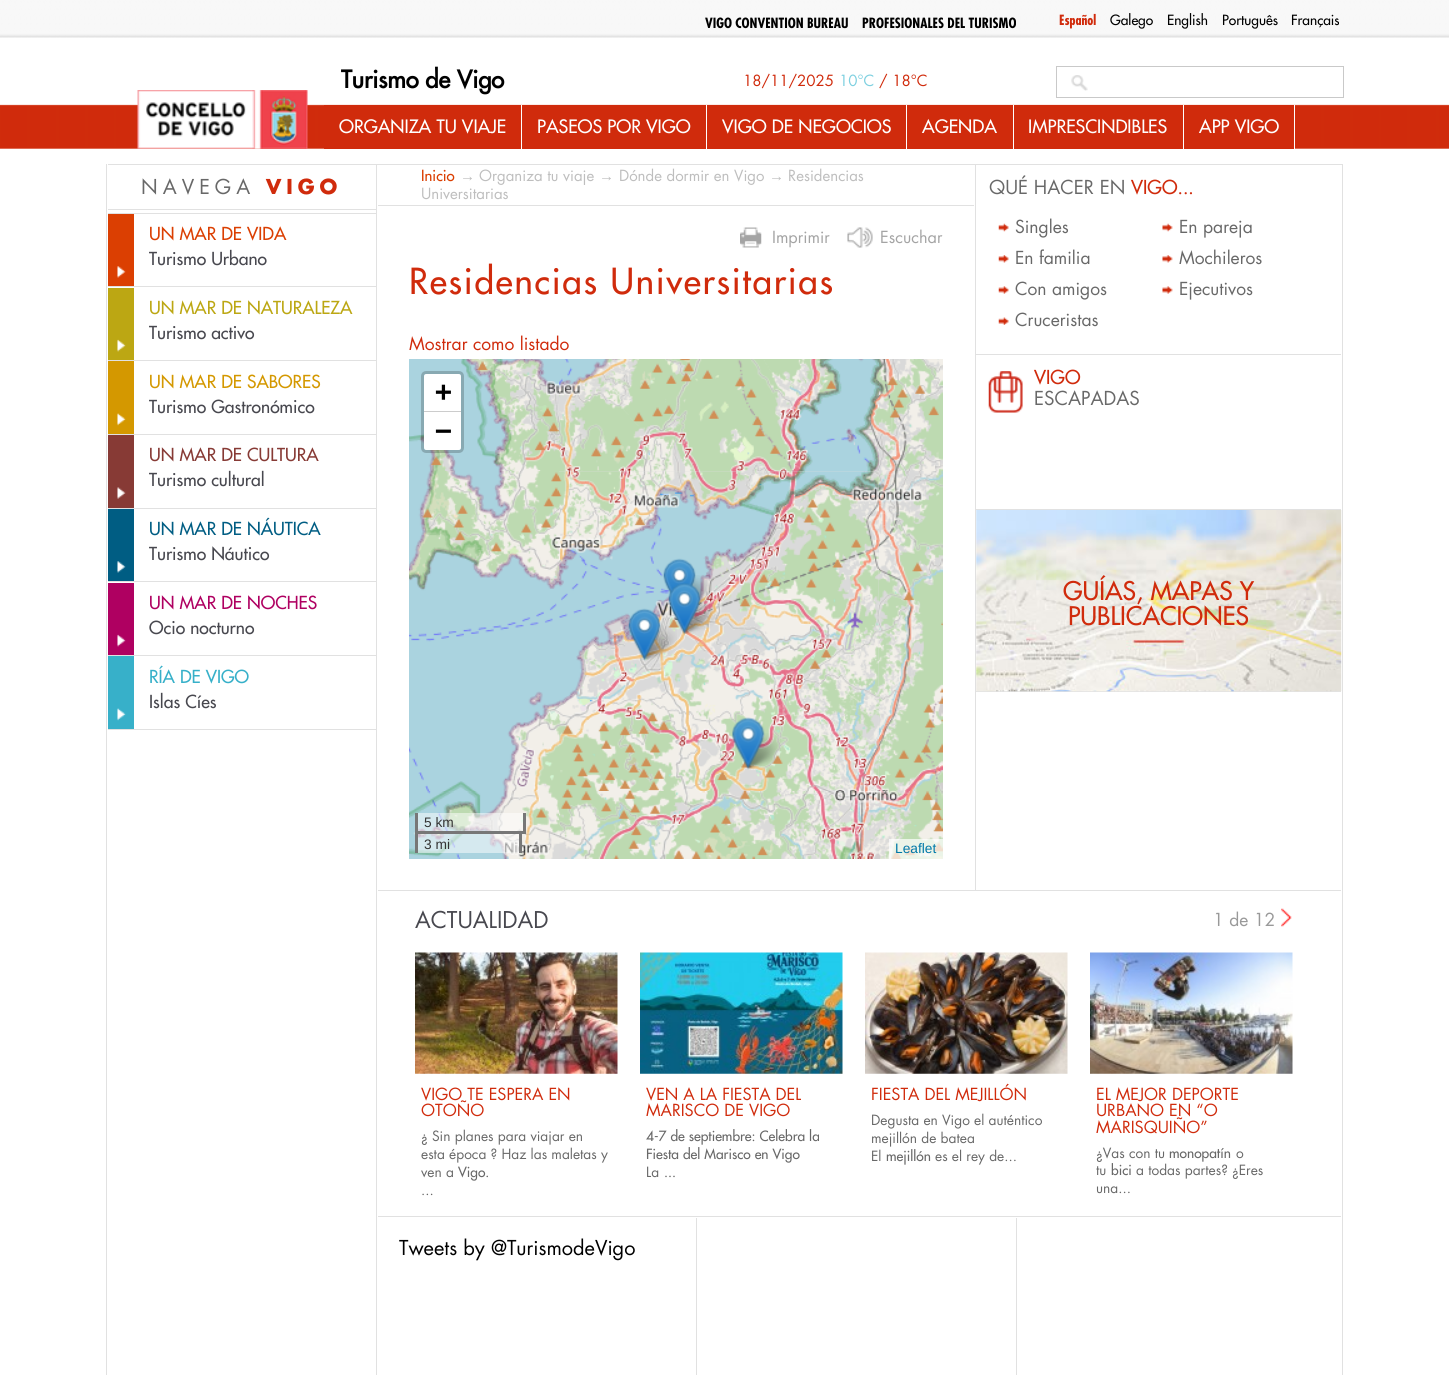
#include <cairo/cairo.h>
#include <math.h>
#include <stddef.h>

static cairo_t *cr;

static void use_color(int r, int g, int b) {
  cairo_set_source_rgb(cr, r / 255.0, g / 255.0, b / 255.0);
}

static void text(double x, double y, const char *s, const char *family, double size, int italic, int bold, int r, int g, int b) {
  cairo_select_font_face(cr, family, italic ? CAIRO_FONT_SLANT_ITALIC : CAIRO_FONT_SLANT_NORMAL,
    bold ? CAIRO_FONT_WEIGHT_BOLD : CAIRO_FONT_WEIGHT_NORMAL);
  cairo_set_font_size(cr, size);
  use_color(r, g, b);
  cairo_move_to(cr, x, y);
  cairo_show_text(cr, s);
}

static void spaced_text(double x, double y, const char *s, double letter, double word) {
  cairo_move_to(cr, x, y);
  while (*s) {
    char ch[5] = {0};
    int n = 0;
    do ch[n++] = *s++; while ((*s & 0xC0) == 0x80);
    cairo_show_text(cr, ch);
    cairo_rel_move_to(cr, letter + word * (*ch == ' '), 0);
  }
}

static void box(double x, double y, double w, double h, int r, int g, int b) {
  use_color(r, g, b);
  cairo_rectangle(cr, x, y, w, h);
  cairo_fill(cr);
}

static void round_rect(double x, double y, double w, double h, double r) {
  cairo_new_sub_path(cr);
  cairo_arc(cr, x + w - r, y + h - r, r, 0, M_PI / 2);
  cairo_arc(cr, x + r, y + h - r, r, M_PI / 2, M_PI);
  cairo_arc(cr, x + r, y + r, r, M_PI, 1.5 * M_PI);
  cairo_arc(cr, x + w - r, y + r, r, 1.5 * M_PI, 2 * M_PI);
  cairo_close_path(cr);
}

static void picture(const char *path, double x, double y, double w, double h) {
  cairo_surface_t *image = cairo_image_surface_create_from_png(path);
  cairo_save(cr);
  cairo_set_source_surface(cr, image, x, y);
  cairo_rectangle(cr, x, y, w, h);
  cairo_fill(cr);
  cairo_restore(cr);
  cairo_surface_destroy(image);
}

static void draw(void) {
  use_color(255, 255, 255);
  cairo_paint(cr);
  picture("img_01.png", 0, 0, 1449, 149);
  cairo_rectangle(cr, 1056.5, 66.5, 287, 31);
  use_color(201, 201, 201);
  cairo_set_line_width(cr, 1);
  cairo_stroke(cr);
  picture("img_02.png", 1071, 75, 17, 16);
  picture("img_03.png", 137, 90, 171, 59);
  box(324, 105, 689, 44, 208, 43, 12);
  box(521, 105, 1, 44, 255, 255, 255);
  box(706, 105, 1, 44, 255, 255, 255);
  box(906, 105, 1, 44, 255, 255, 255);
  box(1013, 105, 1, 44, 255, 255, 255);
  box(1014, 105, 169, 44, 208, 43, 12);
  box(1183, 105, 1, 44, 255, 255, 255);
  box(1184, 105, 110, 44, 208, 43, 12);
  box(1294, 105, 1, 44, 255, 255, 255);
  box(106, 164, 1, 1211, 225, 225, 225);
  box(108, 164, 268, 1, 225, 225, 225);
  box(108, 209, 268, 1, 225, 225, 225);
  box(108, 213, 268, 1, 225, 225, 225);
  box(108, 214, 26, 72, 219, 63, 2);
  picture("img_04.png", 117, 266, 9, 12);
  box(108, 286, 268, 1, 225, 225, 225);
  box(108, 288, 26, 72, 188, 167, 19);
  picture("img_05.png", 117, 339, 9, 13);
  box(108, 360, 268, 1, 225, 225, 225);
  box(108, 361, 26, 73, 212, 152, 0);
  picture("img_06.png", 117, 413, 9, 13);
  box(108, 434, 268, 1, 225, 225, 225);
  box(108, 435, 26, 73, 135, 58, 53);
  picture("img_07.png", 117, 487, 9, 12);
  box(108, 508, 268, 1, 225, 225, 225);
  box(108, 509, 26, 72, 0, 93, 131);
  picture("img_08.png", 117, 561, 9, 12);
  box(108, 581, 268, 1, 225, 225, 225);
  box(108, 583, 26, 72, 175, 0, 97);
  picture("img_09.png", 117, 634, 9, 13);
  box(108, 655, 268, 1, 225, 225, 225);
  box(108, 729, 268, 1, 225, 225, 225);
  box(108, 656, 26, 73, 55, 176, 201);
  picture("img_10.png", 117, 708, 9, 13);
  cairo_rectangle(cr, 376.5, 164.5, 966, 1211);
  use_color(225, 225, 225);
  cairo_stroke(cr);
  box(378, 205, 596, 1, 225, 225, 225);
  picture("img_11.png", 740, 227, 22, 21);
  picture("img_12.png", 847, 227, 26, 21);
  box(559, 471, 320, 320, 221, 221, 221);
  picture("img_13.png", 409, 359, 150, 112);
  picture("img_14.png", 559, 359, 320, 112);
  picture("img_15.png", 879, 359, 64, 112);
  picture("img_16.png", 409, 471, 150, 320);
  picture("img_17.png", 559, 471, 320, 320);
  picture("img_18.png", 879, 471, 64, 320);
  picture("img_19.png", 409, 791, 150, 68);
  picture("img_20.png", 559, 791, 320, 68);
  picture("img_21.png", 879, 791, 64, 68);
  picture("img_26.png", 689, 575, 23, 31);
  picture("img_22.png", 663, 558, 33, 39);
  picture("img_28.png", 640, 625, 37, 36);
  picture("img_23.png", 628, 608, 33, 53);
  picture("img_27.png", 680, 599, 37, 35);
  picture("img_24.png", 668, 583, 33, 52);
  picture("img_29.png", 744, 733, 37, 36);
  picture("img_25.png", 732, 717, 33, 53);
  round_rect(422.5, 372.5, 40, 79, 3.5);
  cairo_set_source_rgba(cr, 0, 0, 0, 0.2);
  cairo_set_line_width(cr, 3);
  cairo_stroke(cr);
  use_color(255, 255, 255);
  cairo_new_path(cr);
  cairo_move_to(cr, 426.5, 374);
  cairo_line_to(cr, 458.5, 374);
  cairo_curve_to(cr, 460, 374, 461, 375, 461, 376.5);
  cairo_line_to(cr, 461, 413);
  cairo_line_to(cr, 424, 413);
  cairo_line_to(cr, 424, 376.5);
  cairo_curve_to(cr, 424, 375, 425, 374, 426.5, 374);
  cairo_close_path(cr);
  cairo_fill(cr);
  box(424, 411, 37, 1, 204, 204, 204);
  use_color(255, 255, 255);
  cairo_new_path(cr);
  cairo_move_to(cr, 424, 413);
  cairo_line_to(cr, 461, 413);
  cairo_line_to(cr, 461, 447.5);
  cairo_curve_to(cr, 461, 449, 460, 450, 458.5, 450);
  cairo_line_to(cr, 426.5, 450);
  cairo_curve_to(cr, 425, 450, 424, 449, 424, 447.5);
  cairo_close_path(cr);
  cairo_fill(cr);
  cairo_set_source_rgba(cr, 1, 1, 1, 0.5);
  cairo_rectangle(cr, 418, 813, 105, 18);
  cairo_fill(cr);
  box(523, 813, 3, 21, 119, 119, 119);
  box(522, 831, 3, 3, 119, 119, 119);
  box(415, 813, 3, 21, 119, 119, 119);
  cairo_set_source_rgba(cr, 1, 1, 1, 0.5);
  cairo_rectangle(cr, 418, 834, 101, 19);
  cairo_fill(cr);
  box(415, 831, 106, 3, 119, 119, 119);
  box(519, 831, 3, 22, 119, 119, 119);
  box(415, 831, 3, 22, 119, 119, 119);
  cairo_set_source_rgba(cr, 1, 1, 1, 0.7);
  cairo_rectangle(cr, 889, 839, 54, 20);
  cairo_fill(cr);
  box(975, 165, 1, 725, 225, 225, 225);
  box(976, 354, 365, 1, 225, 225, 225);
  picture("img_30.png", 998, 223, 11, 9);
  picture("img_31.png", 1162, 223, 11, 9);
  picture("img_32.png", 998, 255, 11, 8);
  picture("img_33.png", 1162, 255, 11, 8);
  picture("img_34.png", 998, 286, 11, 8);
  picture("img_35.png", 1162, 286, 11, 8);
  picture("img_36.png", 998, 317, 11, 8);
  box(976, 509, 365, 1, 225, 225, 225);
  picture("img_37.png", 988, 371, 35, 42);
  box(976, 691, 365, 1, 225, 225, 225);
  picture("img_38.png", 976, 510, 366, 182);
  box(378, 890, 963, 1, 225, 225, 225);
  picture("img_39.png", 1281, 908, 11, 19);
  picture("img_40.png", 415, 952, 203, 122);
  picture("img_41.png", 640, 952, 203, 122);
  picture("img_42.png", 865, 952, 203, 122);
  picture("img_43.png", 1090, 952, 203, 122);
  box(378, 1216, 963, 1, 225, 225, 225);
  box(696, 1218, 1, 157, 225, 225, 225);
  box(1016, 1218, 1, 157, 225, 225, 225);
  text(705, 28, "VIGO CONVENTION BUREAU", "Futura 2", 13.75, 0, 1, 0, 0, 0);
  text(862, 28, "PROFESIONALES DEL TURISMO", "Futura 2", 13.75, 0, 1, 0, 0, 0);
  text(1059, 25, "Español", "Futura 2", 13.75, 0, 1, 208, 43, 12);
  text(1110, 25, "Galego", "Futura Medium", 13.75, 0, 0, 0, 0, 0);
  text(1167, 25, "English", "Futura Medium", 13.75, 0, 0, 0, 0, 0);
  text(1222, 25, "Português", "Futura Medium", 13.75, 0, 0, 0, 0, 0);
  text(1291, 25, "Français", "Futura Medium", 13.75, 0, 0, 0, 0, 0);
  text(341, 88, "Turismo de Vigo", "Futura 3", 23.75, 0, 1, 0, 0, 0);
  text(743, 86, "18/11/2025", "Futura", 15, 0, 0, 208, 43, 12);
  text(839, 86, "10°C", "Futura", 15, 0, 0, 126, 208, 224);
  text(879, 86, "/ 18°C", "Futura", 15, 0, 0, 208, 43, 12);
  text(339, 133, "ORGANIZA TU VIAJE", "Futura Medium", 18, 0, 0, 255, 255, 255);
  text(537, 133, "PASEOS POR VIGO", "Futura Medium", 18, 0, 0, 255, 255, 255);
  text(722, 133, "VIGO DE NEGOCIOS", "Futura Medium", 18, 0, 0, 255, 255, 255);
  text(922, 133, "AGENDA", "Futura Medium", 18, 0, 0, 255, 255, 255);
  text(1028, 133, "IMPRESCINDIBLES", "Futura Medium", 18, 0, 0, 255, 255, 255);
  text(1199, 133, "APP VIGO", "Futura Medium", 18, 0, 0, 255, 255, 255);
  cairo_select_font_face(cr, "Futura", CAIRO_FONT_SLANT_NORMAL, CAIRO_FONT_WEIGHT_NORMAL);
  cairo_set_font_size(cr, 20);
  use_color(104, 104, 104);
  spaced_text(141, 194, "NAVEGA", 5, 0);
  cairo_select_font_face(cr, "Futura", CAIRO_FONT_SLANT_NORMAL, CAIRO_FONT_WEIGHT_BOLD);
  use_color(208, 43, 12);
  spaced_text(266, 194, "VIGO", 5, 0);
  text(149, 240, "UN MAR DE VIDA", "Futura Medium", 17.5, 0, 0, 219, 63, 2);
  text(149, 265, "Turismo Urbano", "Futura Medium", 17.5, 0, 0, 72, 72, 79);
  text(149, 314, "UN MAR DE NATURALEZA", "Futura Medium", 17.5, 0, 0, 188, 167, 19);
  text(149, 339, "Turismo activo", "Futura Medium", 17.5, 0, 0, 72, 72, 79);
  text(149, 388, "UN MAR DE SABORES", "Futura Medium", 17.5, 0, 0, 212, 152, 0);
  text(149, 413, "Turismo Gastronómico", "Futura Medium", 17.5, 0, 0, 72, 72, 79);
  text(149, 461, "UN MAR DE CULTURA", "Futura Medium", 17.5, 0, 0, 135, 58, 53);
  text(149, 486, "Turismo cultural", "Futura Medium", 17.5, 0, 0, 72, 72, 79);
  text(149, 535, "UN MAR DE NÁUTICA", "Futura Medium", 17.5, 0, 0, 0, 93, 131);
  text(149, 560, "Turismo Náutico", "Futura Medium", 17.5, 0, 0, 72, 72, 79);
  text(149, 609, "UN MAR DE NOCHES", "Futura Medium", 17.5, 0, 0, 175, 0, 97);
  text(149, 634, "Ocio nocturno", "Futura Medium", 17.5, 0, 0, 72, 72, 79);
  text(149, 683, "RÍA DE VIGO", "Futura Medium", 17.5, 0, 0, 55, 176, 201);
  text(149, 708, "Islas Cíes", "Futura Medium", 17.5, 0, 0, 72, 72, 79);
  text(421, 181, "Inicio", "Futura Medium", 15, 0, 0, 219, 63, 2);
  text(460, 181, "→", "Liberation Sans", 15, 0, 0, 190, 190, 190);
  text(479, 181, "Organiza tu viaje", "Futura", 15, 0, 0, 190, 190, 190);
  text(599, 181, "→", "Liberation Sans", 15, 0, 0, 190, 190, 190);
  text(619, 181, "Dónde dormir en Vigo", "Futura", 15, 0, 0, 190, 190, 190);
  text(769, 181, "→", "Liberation Sans", 15, 0, 0, 190, 190, 190);
  text(788, 181, "Residencias", "Futura", 15, 0, 0, 190, 190, 190);
  text(421, 199, "Universitarias", "Futura", 15, 0, 0, 190, 190, 190);
  text(772, 243, "Imprimir", "Futura", 16.25, 0, 0, 164, 164, 164);
  text(880, 243, "Escuchar", "Futura", 16.25, 0, 0, 164, 164, 164);
  cairo_select_font_face(cr, "Futura Medium", CAIRO_FONT_SLANT_NORMAL, CAIRO_FONT_WEIGHT_NORMAL);
  cairo_set_font_size(cr, 35);
  use_color(208, 43, 12);
  spaced_text(409, 294, "Residencias Universitarias", 1.75, 0);
  text(409, 350, "Mostrar como listado", "Futura", 17.5, 0, 0, 208, 43, 12);
  text(435, 401, "+", "DejaVu Sans Mono", 28, 0, 1, 0, 0, 0);
  text(435, 440, "−", "DejaVu Sans Mono", 28, 0, 1, 0, 0, 0);
  text(424, 827, "5 km", "Liberation Sans", 13.75, 0, 0, 51, 51, 51);
  text(424, 849, "3 mi", "Liberation Sans", 13.75, 0, 0, 51, 51, 51);
  text(895, 853, "Leaflet", "Liberation Sans", 13.75, 0, 0, 0, 120, 168);
  text(989, 194, "QUÉ HACER EN", "Futura", 18.75, 0, 0, 104, 104, 104);
  text(1131, 194, "VIGO...", "Futura Medium", 18.75, 0, 0, 208, 43, 12);
  text(1015, 233, "Singles", "Futura", 17.5, 0, 0, 104, 104, 104);
  text(1179, 233, "En pareja", "Futura", 17.5, 0, 0, 104, 104, 104);
  text(1015, 264, "En familia", "Futura", 17.5, 0, 0, 104, 104, 104);
  text(1179, 264, "Mochileros", "Futura", 17.5, 0, 0, 104, 104, 104);
  text(1015, 295, "Con amigos", "Futura", 17.5, 0, 0, 104, 104, 104);
  text(1179, 295, "Ejecutivos", "Futura", 17.5, 0, 0, 104, 104, 104);
  text(1015, 326, "Cruceristas", "Futura", 17.5, 0, 0, 104, 104, 104);
  text(1034, 384, "VIGO", "Futura Medium", 18.75, 0, 0, 208, 43, 12);
  text(1034, 405, "ESCAPADAS", "Futura", 18.75, 0, 0, 104, 104, 104);
  text(1063, 600, "GUÍAS, MAPAS Y", "Futura Medium", 25, 0, 0, 208, 43, 12);
  text(1068, 625, "PUBLICACIONES", "Futura Medium", 25, 0, 0, 208, 43, 12);
  text(415, 928, "ACTUALIDAD", "Futura", 22.5, 0, 0, 72, 72, 79);
  text(1213, 926, "1 de 12", "Futura", 17.5, 0, 0, 153, 153, 153);
  text(421, 1100, "VIGO TE ESPERA EN", "Futura", 16.25, 0, 0, 208, 43, 12);
  text(421, 1116, "OTOÑO", "Futura", 16.25, 0, 0, 208, 43, 12);
  text(421, 1141, "¿ Sin planes para viajar en", "Futura", 13.75, 0, 0, 104, 104, 104);
  text(421, 1159, "esta época ? Haz las maletas y", "Futura", 13.75, 0, 0, 104, 104, 104);
  text(421, 1177, "ven a", "Futura", 13.75, 0, 0, 104, 104, 104);
  text(458, 1177, "Vigo.", "Futura Medium", 13.75, 0, 0, 104, 104, 104);
  text(421, 1195, "...", "Futura", 13.75, 0, 0, 104, 104, 104);
  text(646, 1100, "VEN A LA FIESTA DEL", "Futura", 16.25, 0, 0, 208, 43, 12);
  text(646, 1116, "MARISCO DE VIGO", "Futura", 16.25, 0, 0, 208, 43, 12);
  text(646, 1141, "4-7 de septiembre: Celebra la", "Futura Medium", 13.75, 0, 0, 104, 104, 104);
  text(646, 1159, "Fiesta del Marisco en Vigo", "Futura Medium", 13.75, 0, 0, 104, 104, 104);
  text(646, 1177, "La", "Futura", 13.75, 0, 0, 104, 104, 104);
  text(664, 1177, "...", "Futura Medium", 13.75, 0, 0, 104, 104, 104);
  text(871, 1100, "FIESTA DEL MEJILLÓN", "Futura", 16.25, 0, 0, 208, 43, 12);
  text(871, 1125, "Degusta en Vigo el auténtico", "Futura", 13.75, 0, 0, 104, 104, 104);
  text(871, 1143, "mejillón de batea", "Futura", 13.75, 0, 0, 104, 104, 104);
  text(871, 1161, "El", "Futura", 13.75, 0, 0, 104, 104, 104);
  text(886, 1161, "mejillón", "Futura Medium", 13.75, 0, 0, 104, 104, 104);
  text(935, 1161, "es el rey de...", "Futura", 13.75, 0, 0, 104, 104, 104);
  text(1096, 1100, "EL MEJOR DEPORTE", "Futura", 16.25, 0, 0, 208, 43, 12);
  text(1096, 1116, "URBANO EN “O", "Futura", 16.25, 0, 0, 208, 43, 12);
  text(1096, 1133, "MARISQUIÑO”", "Futura", 16.25, 0, 0, 208, 43, 12);
  text(1096, 1158, "¿Vas con tu", "Futura", 13.75, 0, 0, 104, 104, 104);
  text(1169, 1158, "monopatín", "Futura Medium", 13.75, 0, 0, 104, 104, 104);
  text(1236, 1158, "o", "Futura", 13.75, 0, 0, 104, 104, 104);
  text(1096, 1175, "tu", "Futura", 13.75, 0, 0, 104, 104, 104);
  text(1111, 1175, "bici", "Futura Medium", 13.75, 0, 0, 104, 104, 104);
  text(1136, 1175, "a todas partes? ¿Eres", "Futura", 13.75, 0, 0, 104, 104, 104);
  text(1096, 1193, "una...", "Futura", 13.75, 0, 0, 104, 104, 104);
  text(399, 1255, "Tweets by @TurismodeVigo", "Futura", 20, 0, 0, 0, 0, 0);
}

int main(void) {
  cairo_surface_t *surface = cairo_image_surface_create(CAIRO_FORMAT_RGB24, 1449, 1375);
  cr = cairo_create(surface);
  cairo_font_options_t *options = cairo_font_options_create();
  cairo_font_options_set_hint_metrics(options, CAIRO_HINT_METRICS_OFF);
  cairo_font_options_set_hint_style(options, CAIRO_HINT_STYLE_NONE);
  cairo_set_font_options(cr, options);
  cairo_set_miter_limit(cr, 4);
  draw();
  cairo_surface_write_to_png(surface, "out.png");
  cairo_font_options_destroy(options);
  cairo_destroy(cr);
  cairo_surface_destroy(surface);
  return 0;
}
